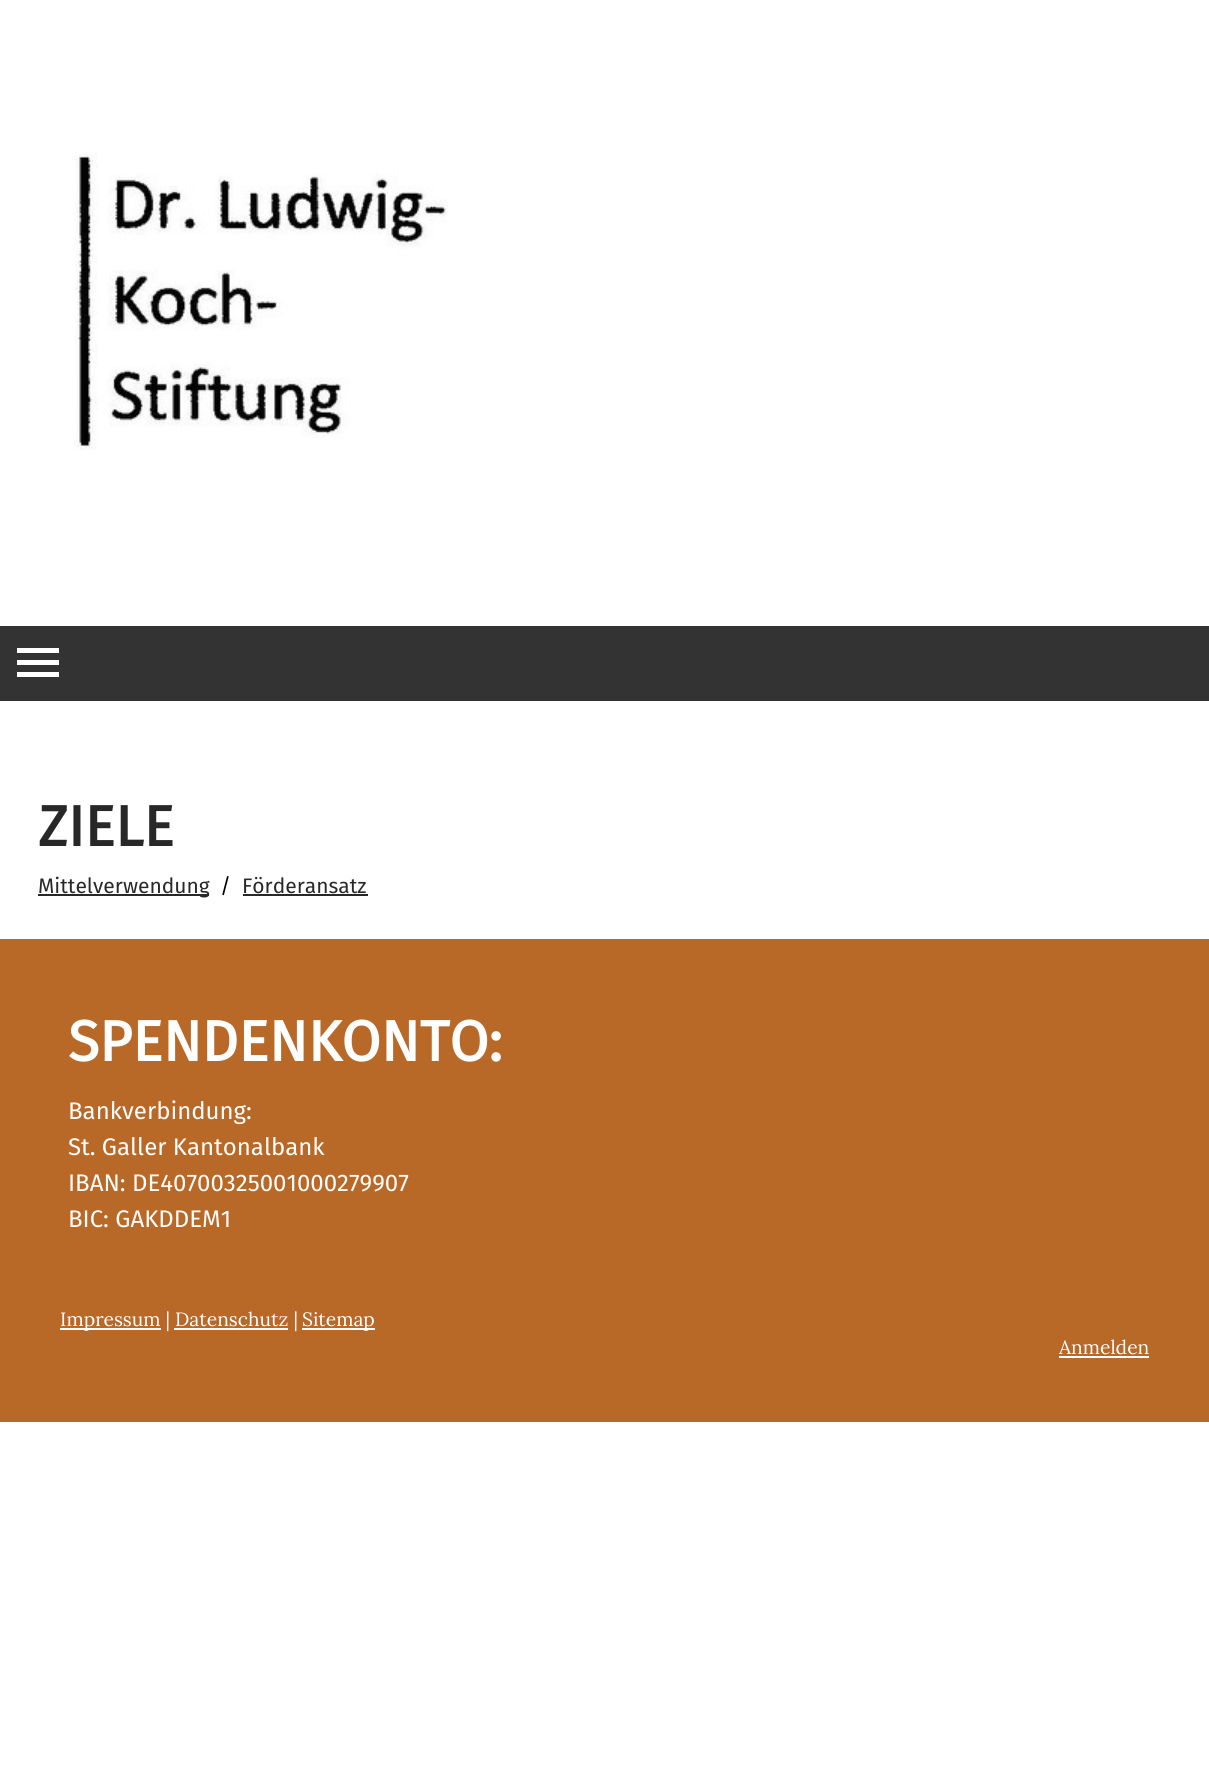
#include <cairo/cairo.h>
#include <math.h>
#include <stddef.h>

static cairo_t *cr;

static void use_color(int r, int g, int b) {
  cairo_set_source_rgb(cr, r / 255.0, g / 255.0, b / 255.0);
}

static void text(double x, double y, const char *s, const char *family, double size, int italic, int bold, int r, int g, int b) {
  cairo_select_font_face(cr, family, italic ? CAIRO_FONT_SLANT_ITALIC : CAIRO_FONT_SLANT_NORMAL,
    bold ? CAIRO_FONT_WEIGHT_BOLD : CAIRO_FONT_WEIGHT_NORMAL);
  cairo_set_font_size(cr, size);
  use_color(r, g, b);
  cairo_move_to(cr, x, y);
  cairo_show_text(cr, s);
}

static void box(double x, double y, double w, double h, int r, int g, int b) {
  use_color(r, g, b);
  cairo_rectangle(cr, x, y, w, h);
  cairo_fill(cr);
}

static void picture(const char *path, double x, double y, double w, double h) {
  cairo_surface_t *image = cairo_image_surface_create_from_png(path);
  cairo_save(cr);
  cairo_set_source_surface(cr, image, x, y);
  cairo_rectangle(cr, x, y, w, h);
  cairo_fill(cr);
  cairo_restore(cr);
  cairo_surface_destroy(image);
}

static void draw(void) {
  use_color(255, 255, 255);
  cairo_paint(cr);
  picture("img_01.png", 74, 152, 374, 298);
  box(0, 626, 1209, 75, 51, 51, 51);
  box(17, 660, 42, 5, 255, 255, 255);
  box(17, 648, 42, 5, 255, 255, 255);
  box(17, 672, 42, 5, 255, 255, 255);
  box(38, 894, 171, 2, 40, 40, 40);
  box(243, 894, 125, 2, 40, 40, 40);
  box(0, 939, 1209, 483, 184, 104, 39);
  box(60, 1328, 101, 2, 255, 255, 255);
  box(302, 1328, 73, 2, 255, 255, 255);
  box(174, 1328, 114, 2, 255, 255, 255);
  box(1059, 1356, 90, 2, 255, 255, 255);
  text(38, 846, "ZIELE", "Fira Sans", 57, 0, 1, 40, 40, 40);
  text(38, 893, "Mittelverwendung", "Fira Sans", 21, 0, 0, 40, 40, 40);
  text(220, 893, "/", "Fira Sans", 21, 0, 0, 0, 0, 0);
  text(242, 893, "Förderansatz", "Fira Sans", 21, 0, 0, 40, 40, 40);
  text(68, 1061, "SPENDENKONTO:", "Fira Sans", 57, 0, 1, 255, 255, 255);
  text(68, 1119, "Bankverbindung:", "Fira Sans", 24, 0, 0, 255, 255, 255);
  text(68, 1155, "St. Galler Kantonalbank", "Fira Sans", 24, 0, 0, 255, 255, 255);
  text(68, 1191, "IBAN: DE40700325001000279907", "Fira Sans", 24, 0, 0, 255, 255, 255);
  text(68, 1227, "BIC: GAKDDEM1", "Fira Sans", 24, 0, 0, 255, 255, 255);
  text(60, 1326, "Impressum | Datenschutz |", "Lora", 19.25, 0, 0, 255, 255, 255);
  text(302, 1326, "Sitemap", "Lora", 19.25, 0, 0, 255, 255, 255);
  text(1059, 1354, "Anmelden", "Lora", 19.25, 0, 0, 255, 255, 255);
}

int main(void) {
  cairo_surface_t *surface = cairo_image_surface_create(CAIRO_FORMAT_RGB24, 1209, 1787);
  cr = cairo_create(surface);
  cairo_font_options_t *options = cairo_font_options_create();
  cairo_font_options_set_hint_metrics(options, CAIRO_HINT_METRICS_OFF);
  cairo_font_options_set_hint_style(options, CAIRO_HINT_STYLE_NONE);
  cairo_set_font_options(cr, options);
  cairo_set_miter_limit(cr, 4);
  draw();
  cairo_surface_write_to_png(surface, "out.png");
  cairo_font_options_destroy(options);
  cairo_destroy(cr);
  cairo_surface_destroy(surface);
  return 0;
}
